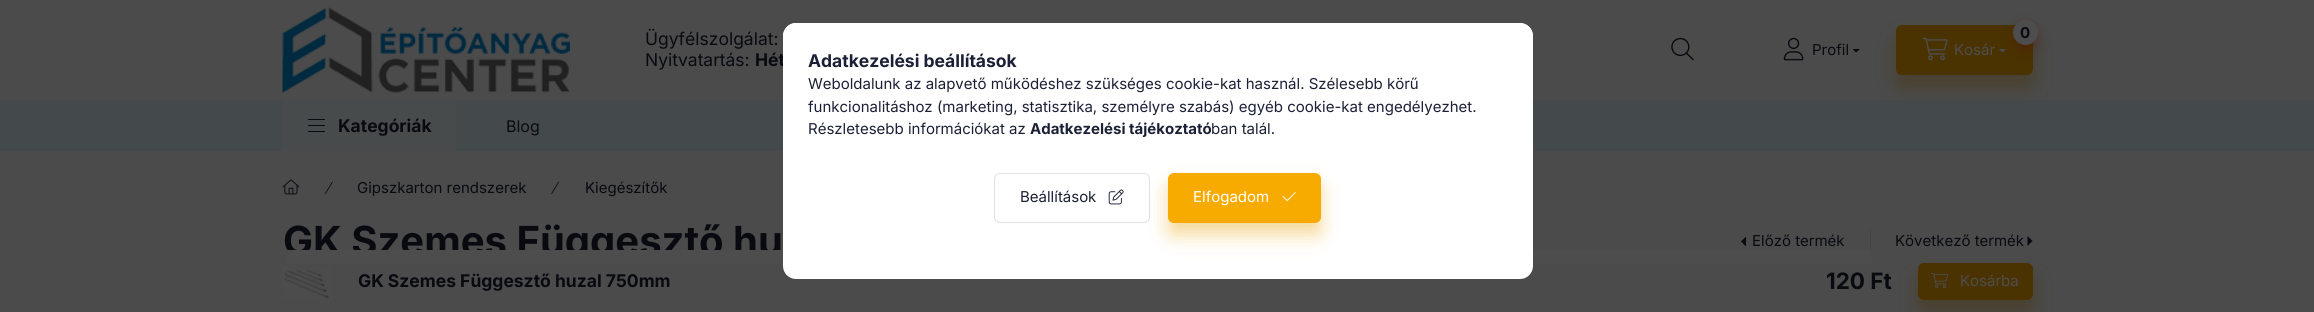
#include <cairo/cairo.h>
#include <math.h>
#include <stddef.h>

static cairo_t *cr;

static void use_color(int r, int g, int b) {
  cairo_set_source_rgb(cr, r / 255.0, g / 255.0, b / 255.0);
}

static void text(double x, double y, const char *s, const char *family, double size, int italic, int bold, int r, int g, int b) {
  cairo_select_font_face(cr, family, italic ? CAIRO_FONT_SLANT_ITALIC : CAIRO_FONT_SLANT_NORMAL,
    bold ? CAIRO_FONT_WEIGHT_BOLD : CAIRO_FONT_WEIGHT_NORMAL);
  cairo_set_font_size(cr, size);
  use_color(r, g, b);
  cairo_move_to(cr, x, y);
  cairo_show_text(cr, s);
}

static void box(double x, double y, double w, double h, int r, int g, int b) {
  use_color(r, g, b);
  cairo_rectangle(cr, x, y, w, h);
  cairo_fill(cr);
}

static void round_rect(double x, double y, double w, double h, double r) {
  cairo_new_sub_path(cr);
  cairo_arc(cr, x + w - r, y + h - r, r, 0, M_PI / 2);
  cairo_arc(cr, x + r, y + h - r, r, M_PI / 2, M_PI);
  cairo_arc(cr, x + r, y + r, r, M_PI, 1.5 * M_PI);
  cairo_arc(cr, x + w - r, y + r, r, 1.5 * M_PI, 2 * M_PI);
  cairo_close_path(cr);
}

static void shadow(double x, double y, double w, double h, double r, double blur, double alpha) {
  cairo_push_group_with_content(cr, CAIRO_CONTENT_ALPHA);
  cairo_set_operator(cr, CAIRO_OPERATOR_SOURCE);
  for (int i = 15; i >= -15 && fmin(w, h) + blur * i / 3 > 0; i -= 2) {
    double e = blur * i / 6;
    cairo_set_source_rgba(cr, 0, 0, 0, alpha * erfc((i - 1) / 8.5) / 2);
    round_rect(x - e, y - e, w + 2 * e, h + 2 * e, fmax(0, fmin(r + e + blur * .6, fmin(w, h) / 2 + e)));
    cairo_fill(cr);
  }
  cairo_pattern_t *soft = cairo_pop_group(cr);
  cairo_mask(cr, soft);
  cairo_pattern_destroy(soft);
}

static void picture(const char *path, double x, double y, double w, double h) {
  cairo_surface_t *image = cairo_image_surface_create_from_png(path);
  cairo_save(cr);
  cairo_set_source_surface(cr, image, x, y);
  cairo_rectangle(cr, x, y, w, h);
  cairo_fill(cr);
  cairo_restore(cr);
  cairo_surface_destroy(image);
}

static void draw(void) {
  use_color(75, 75, 75);
  cairo_paint(cr);
  picture("img_01.png", 282, 7, 288, 86);
  picture("img_02.png", 1671, 37, 23, 24);
  picture("img_03.png", 1783, 37, 21, 24);
  use_color(8, 10, 16);
  cairo_new_path(cr);
  cairo_move_to(cr, 1852.5, 49);
  cairo_line_to(cr, 1860, 49);
  cairo_line_to(cr, 1856, 52.5);
  cairo_close_path(cr);
  cairo_fill(cr);
  box(0, 100, 2314, 51, 68, 74, 76);
  use_color(70, 48, 0);
  shadow(1896, 38, 137, 50, 6, 9.5, 0.4);
  use_color(74, 51, 0);
  round_rect(1896, 25, 137, 50, 6);
  cairo_fill(cr);
  use_color(77, 19, 8);
  shadow(2013, 26, 25, 25, 12.5, 6, 0.4);
  use_color(77, 77, 77);
  cairo_arc(cr, 2025.5, 32.5, 12.5, 0, 2 * M_PI);
  cairo_fill(cr);
  picture("img_04.png", 1922, 37, 26, 24);
  cairo_new_path(cr);
  cairo_move_to(cr, 1999, 49);
  cairo_line_to(cr, 2006, 49);
  cairo_line_to(cr, 2002.5, 52.5);
  cairo_close_path(cr);
  cairo_fill(cr);
  box(283, 100, 173, 51, 71, 75, 76);
  box(308, 119, 17, 1, 8, 10, 16);
  box(308, 125, 17, 1, 8, 10, 16);
  box(308, 131, 17, 1, 8, 10, 16);
  picture("img_05.png", 282, 179, 18, 16);
  picture("img_06.png", 325, 181, 8, 13);
  picture("img_07.png", 551, 181, 8, 13);
  cairo_new_path(cr);
  cairo_move_to(cr, 1746, 246.5);
  cairo_line_to(cr, 1746, 236.5);
  cairo_line_to(cr, 1741, 241.5);
  cairo_close_path(cr);
  cairo_fill(cr);
  box(1870, 230, 1, 23, 68, 68, 68);
  use_color(8, 10, 16);
  cairo_new_path(cr);
  cairo_move_to(cr, 2027.5, 246);
  cairo_line_to(cr, 2027.5, 236);
  cairo_line_to(cr, 2032.5, 241);
  cairo_close_path(cr);
  cairo_fill(cr);
  picture("img_08.png", 283, 266, 48, 34);
  use_color(70, 48, 0);
  shadow(1918, 275, 115, 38, 6, 9.5, 0.4);
  use_color(74, 51, 0);
  round_rect(1918, 263, 115, 37, 6);
  cairo_fill(cr);
  picture("img_09.png", 1931, 273, 17, 16);
  text(645, 45, "Ügyfélszolgálat:", "Inter", 17.5, 0, 0, 8, 10, 16);
  text(645, 66, "Nyitvatartás:", "Inter", 17.5, 0, 0, 8, 10, 16);
  text(755, 66, "Hét", "Inter", 17.5, 0, 1, 8, 10, 16);
  text(1812, 55, "Profil", "Inter", 15, 0, 0, 8, 10, 16);
  text(2020, 38, "0", "Inter", 15, 0, 1, 8, 10, 16);
  text(1954, 55, "Kosár", "Inter", 15, 0, 0, 77, 77, 77);
  text(338, 132, "Kategóriák", "Inter", 17.5, 0, 1, 8, 10, 16);
  text(506, 132, "Blog", "Inter", 16, 0, 0, 8, 10, 16);
  text(357, 193, "Gipszkarton rendszerek", "Inter", 15, 0, 0, 8, 10, 16);
  text(585, 193, "Kiegészítők", "Inter", 15, 0, 0, 8, 10, 16);
  text(283, 255, "GK Szemes Függesztő hu", "Inter", 40, 0, 1, 8, 10, 16);
  text(1752, 246, "Előző termék", "Inter", 15, 0, 0, 8, 10, 16);
  text(1895, 246, "Következő termék", "Inter", 15, 0, 0, 8, 10, 16);
  box(287, 250, 1584, 14, 77, 77, 77);
  text(358, 287, "GK Szemes Függesztő huzal 750mm", "Inter", 17.5, 0, 1, 8, 10, 16);
  text(1826, 289, "120 Ft", "Inter", 22.5, 0, 1, 8, 10, 16);
  text(1960, 286, "Kosárba", "Inter", 15, 0, 0, 77, 77, 77);
  use_color(255, 255, 255);
  round_rect(783, 23, 750, 256, 13);
  cairo_fill(cr);
  cairo_new_path(cr);
  cairo_move_to(cr, 796, 23);
  cairo_line_to(cr, 1520, 23);
  cairo_curve_to(cr, 1527, 23, 1533, 29, 1533, 36);
  cairo_line_to(cr, 1533, 254);
  cairo_line_to(cr, 783, 254);
  cairo_line_to(cr, 783, 36);
  cairo_curve_to(cr, 783, 29, 789, 23, 796, 23);
  cairo_close_path(cr);
  cairo_fill(cr);
  text(808, 67, "Adatkezelési beállítások", "Inter", 17.5, 0, 1, 27, 32, 54);
  text(808, 89, "Weboldalunk az alapvető működéshez szükséges cookie-kat használ. Szélesebb körű", "Inter", 15, 0, 0, 27, 32, 54);
  text(808, 112, "funkcionalitáshoz (marketing, statisztika, személyre szabás) egyéb cookie-kat engedélyezhet.", "Inter", 15, 0, 0, 27, 32, 54);
  text(808, 134, "Részletesebb információkat az", "Inter", 15, 0, 0, 27, 32, 54);
  text(1030, 134, "Adatkezelési tájékoztató", "Inter", 15, 0, 1, 27, 32, 54);
  text(1211, 134, "ban talál.", "Inter", 15, 0, 0, 27, 32, 54);
  round_rect(994.5, 173.5, 155, 49, 5.5);
  use_color(225, 225, 225);
  cairo_set_line_width(cr, 1);
  cairo_stroke(cr);
  text(1020, 202, "Beállítások", "Inter", 15, 0, 0, 27, 32, 54);
  picture("img_10.png", 1108, 189, 16, 16);
  use_color(234, 160, 0);
  shadow(1168, 185, 153, 50, 6, 9.5, 0.4);
  use_color(247, 171, 1);
  round_rect(1168.5, 173.5, 152, 49, 5.5);
  cairo_fill_preserve(cr);
  cairo_stroke(cr);
  text(1193, 202, "Elfogadom", "Inter", 15, 0, 0, 255, 255, 255);
  picture("img_11.png", 1282, 192, 14, 9);
}

int main(void) {
  cairo_surface_t *surface = cairo_image_surface_create(CAIRO_FORMAT_RGB24, 2314, 312);
  cr = cairo_create(surface);
  cairo_font_options_t *options = cairo_font_options_create();
  cairo_font_options_set_hint_metrics(options, CAIRO_HINT_METRICS_OFF);
  cairo_font_options_set_hint_style(options, CAIRO_HINT_STYLE_NONE);
  cairo_set_font_options(cr, options);
  cairo_set_miter_limit(cr, 4);
  draw();
  cairo_surface_write_to_png(surface, "out.png");
  cairo_font_options_destroy(options);
  cairo_destroy(cr);
  cairo_surface_destroy(surface);
  return 0;
}
